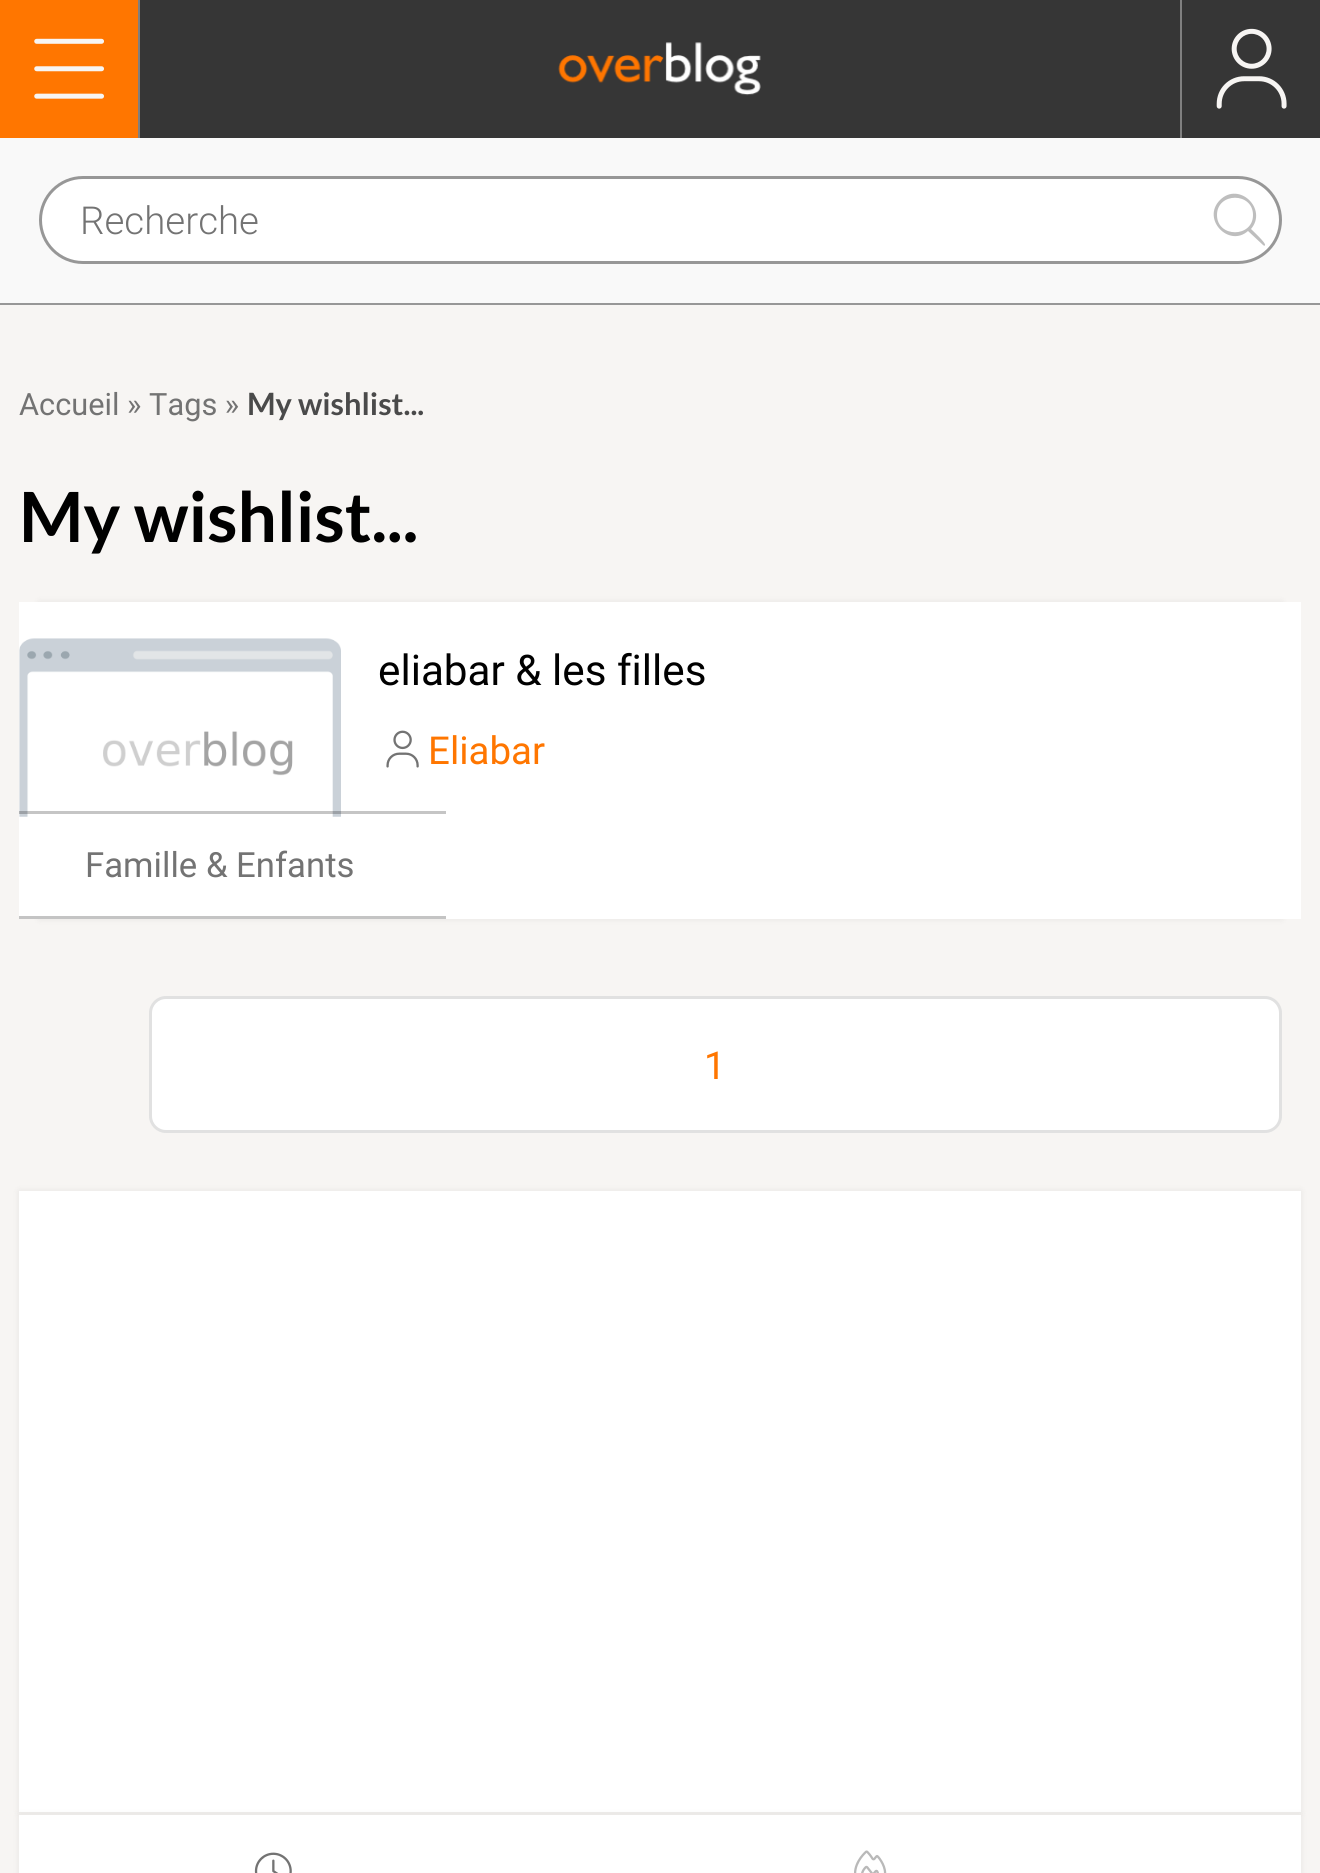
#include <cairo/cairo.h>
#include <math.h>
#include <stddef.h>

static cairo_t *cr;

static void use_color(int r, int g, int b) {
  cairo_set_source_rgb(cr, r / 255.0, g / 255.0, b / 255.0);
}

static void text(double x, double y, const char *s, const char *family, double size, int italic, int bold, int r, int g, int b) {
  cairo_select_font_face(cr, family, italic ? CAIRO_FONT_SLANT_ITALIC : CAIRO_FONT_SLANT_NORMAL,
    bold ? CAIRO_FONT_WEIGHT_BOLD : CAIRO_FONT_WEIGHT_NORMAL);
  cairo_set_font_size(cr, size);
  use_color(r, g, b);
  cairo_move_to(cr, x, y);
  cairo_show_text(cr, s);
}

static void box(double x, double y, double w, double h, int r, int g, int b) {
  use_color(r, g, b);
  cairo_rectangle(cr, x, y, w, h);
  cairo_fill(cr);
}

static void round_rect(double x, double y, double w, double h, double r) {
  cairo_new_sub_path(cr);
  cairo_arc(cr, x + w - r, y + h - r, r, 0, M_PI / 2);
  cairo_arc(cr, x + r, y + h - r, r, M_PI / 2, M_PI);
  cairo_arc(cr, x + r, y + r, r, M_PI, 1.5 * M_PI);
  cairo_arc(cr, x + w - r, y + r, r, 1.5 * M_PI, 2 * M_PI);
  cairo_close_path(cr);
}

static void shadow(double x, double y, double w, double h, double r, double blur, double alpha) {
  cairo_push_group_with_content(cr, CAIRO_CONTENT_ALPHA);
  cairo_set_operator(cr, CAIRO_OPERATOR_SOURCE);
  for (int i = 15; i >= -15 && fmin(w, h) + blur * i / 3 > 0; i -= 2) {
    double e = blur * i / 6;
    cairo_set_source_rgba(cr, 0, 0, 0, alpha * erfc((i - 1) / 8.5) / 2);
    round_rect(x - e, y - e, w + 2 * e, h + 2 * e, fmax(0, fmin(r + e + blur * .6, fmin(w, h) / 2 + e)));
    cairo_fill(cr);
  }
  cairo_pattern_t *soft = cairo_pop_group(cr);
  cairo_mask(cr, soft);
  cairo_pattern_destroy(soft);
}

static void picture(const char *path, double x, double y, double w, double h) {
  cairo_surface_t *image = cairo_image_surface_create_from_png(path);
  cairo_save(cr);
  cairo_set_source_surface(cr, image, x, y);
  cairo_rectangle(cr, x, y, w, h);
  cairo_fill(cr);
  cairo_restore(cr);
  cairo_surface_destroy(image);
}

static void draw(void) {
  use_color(247, 245, 243);
  cairo_paint(cr);
  box(140, 0, 1180, 138, 54, 54, 54);
  use_color(128, 128, 128);
  cairo_new_path(cr);
  cairo_move_to(cr, 3, 138);
  cairo_line_to(cr, 140, 138);
  cairo_line_to(cr, 140, 0);
  cairo_line_to(cr, 138, 0);
  cairo_line_to(cr, 138, 138);
  cairo_close_path(cr);
  cairo_fill(cr);
  box(0, 0, 138, 138, 255, 118, 0);
  picture("img_01.png", 34, 38, 70, 61);
  picture("img_02.png", 558, 42, 203, 54);
  use_color(128, 128, 128);
  cairo_new_path(cr);
  cairo_move_to(cr, 1180, 0);
  cairo_line_to(cr, 1180, 138);
  cairo_line_to(cr, 1317, 138);
  cairo_line_to(cr, 1182, 138);
  cairo_line_to(cr, 1182, 0);
  cairo_close_path(cr);
  cairo_fill(cr);
  picture("img_03.png", 1216, 28, 71, 81);
  box(0, 303, 1320, 2, 151, 151, 151);
  box(0, 138, 1320, 165, 249, 249, 249);
  use_color(255, 255, 255);
  round_rect(40.5, 177.5, 1240, 85, 42.5);
  cairo_fill_preserve(cr);
  use_color(151, 151, 151);
  cairo_set_line_width(cr, 3);
  cairo_stroke(cr);
  use_color(190, 190, 190);
  cairo_new_path(cr);
  cairo_move_to(cr, 1253, 215);
  cairo_curve_to(cr, 1253, 192, 1217, 192, 1217, 215);
  cairo_curve_to(cr, 1217, 238, 1253, 238, 1253, 215);
  cairo_close_path(cr);
  cairo_move_to(cr, 1248, 231);
  cairo_curve_to(cr, 1229, 248, 1201, 219, 1220, 200);
  cairo_curve_to(cr, 1239, 181, 1268, 209, 1251, 229);
  cairo_curve_to(cr, 1253, 231, 1266, 243, 1265, 245);
  cairo_curve_to(cr, 1265, 246, 1264, 246, 1263, 245);
  cairo_close_path(cr);
  cairo_fill(cr);
  use_color(0, 0, 0);
  shadow(39, 602, 1243, 317, 0, 4, 0.07);
  box(19, 602, 1282, 317, 255, 255, 255);
  picture("img_04.png", 19, 638, 322, 179);
  picture("img_05.png", 386, 730, 33, 38);
  cairo_set_source_rgba(cr, 0, 0, 0, 0.23);
  cairo_new_path(cr);
  cairo_move_to(cr, 19, 811);
  cairo_line_to(cr, 19, 913);
  cairo_line_to(cr, 19, 814);
  cairo_line_to(cr, 446, 814);
  cairo_line_to(cr, 446, 913);
  cairo_line_to(cr, 446, 811);
  cairo_close_path(cr);
  cairo_fill(cr);
  use_color(196, 196, 196);
  cairo_new_path(cr);
  cairo_move_to(cr, 19, 817);
  cairo_line_to(cr, 19, 919);
  cairo_line_to(cr, 446, 919);
  cairo_line_to(cr, 446, 817);
  cairo_line_to(cr, 446, 916);
  cairo_line_to(cr, 19, 916);
  cairo_close_path(cr);
  cairo_fill(cr);
  use_color(255, 255, 255);
  round_rect(150.5, 997.5, 1130, 134, 15.5);
  cairo_fill_preserve(cr);
  use_color(225, 225, 225);
  cairo_stroke(cr);
  use_color(0, 0, 0);
  shadow(19, 1191, 1282, 621, 0, 4, 0.07);
  box(19, 1191, 1282, 621, 255, 255, 255);
  use_color(0, 0, 0);
  shadow(19, 1815, 1282, 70, 0, 4, 0.07);
  box(19, 1815, 1282, 58, 255, 255, 255);
  picture("img_06.png", 254, 1852, 38, 21);
  picture("img_07.png", 854, 1850, 33, 23);
  text(80, 234, "Recherche", "Roboto Light", 38.5, 0, 0, 115, 115, 115);
  text(19, 415, "Accueil » Tags »", "Roboto", 30.75, 0, 0, 115, 115, 115);
  text(247, 415, "My wishlist...", "Lato", 30.75, 0, 1, 74, 74, 74);
  text(19, 542, "My wishlist...", "Lato", 69.25, 0, 1, 0, 0, 0);
  text(378, 685, "eliabar & les filles", "Roboto", 42.25, 0, 0, 0, 0, 0);
  text(428, 764, "Eliabar", "Roboto", 38.5, 0, 0, 255, 118, 0);
  text(85, 877, "Famille & Enfants", "Roboto", 34.75, 0, 0, 115, 115, 115);
  text(704, 1079, "1", "Roboto", 38.5, 0, 0, 255, 118, 0);
}

int main(void) {
  cairo_surface_t *surface = cairo_image_surface_create(CAIRO_FORMAT_RGB24, 1320, 1873);
  cr = cairo_create(surface);
  cairo_font_options_t *options = cairo_font_options_create();
  cairo_font_options_set_hint_metrics(options, CAIRO_HINT_METRICS_OFF);
  cairo_font_options_set_hint_style(options, CAIRO_HINT_STYLE_NONE);
  cairo_set_font_options(cr, options);
  cairo_set_miter_limit(cr, 4);
  draw();
  cairo_surface_write_to_png(surface, "out.png");
  cairo_font_options_destroy(options);
  cairo_destroy(cr);
  cairo_surface_destroy(surface);
  return 0;
}
